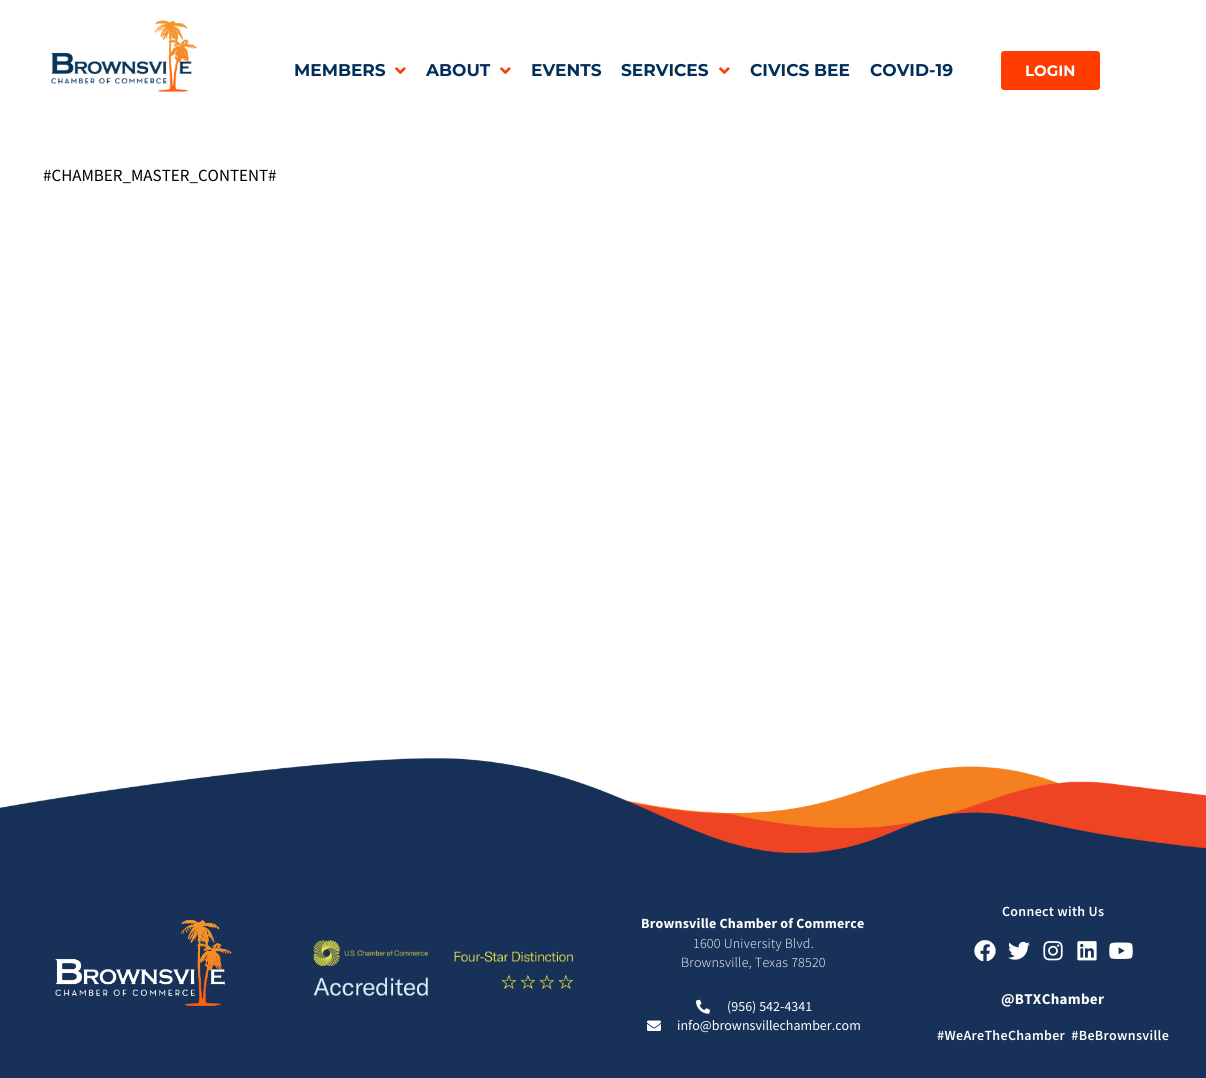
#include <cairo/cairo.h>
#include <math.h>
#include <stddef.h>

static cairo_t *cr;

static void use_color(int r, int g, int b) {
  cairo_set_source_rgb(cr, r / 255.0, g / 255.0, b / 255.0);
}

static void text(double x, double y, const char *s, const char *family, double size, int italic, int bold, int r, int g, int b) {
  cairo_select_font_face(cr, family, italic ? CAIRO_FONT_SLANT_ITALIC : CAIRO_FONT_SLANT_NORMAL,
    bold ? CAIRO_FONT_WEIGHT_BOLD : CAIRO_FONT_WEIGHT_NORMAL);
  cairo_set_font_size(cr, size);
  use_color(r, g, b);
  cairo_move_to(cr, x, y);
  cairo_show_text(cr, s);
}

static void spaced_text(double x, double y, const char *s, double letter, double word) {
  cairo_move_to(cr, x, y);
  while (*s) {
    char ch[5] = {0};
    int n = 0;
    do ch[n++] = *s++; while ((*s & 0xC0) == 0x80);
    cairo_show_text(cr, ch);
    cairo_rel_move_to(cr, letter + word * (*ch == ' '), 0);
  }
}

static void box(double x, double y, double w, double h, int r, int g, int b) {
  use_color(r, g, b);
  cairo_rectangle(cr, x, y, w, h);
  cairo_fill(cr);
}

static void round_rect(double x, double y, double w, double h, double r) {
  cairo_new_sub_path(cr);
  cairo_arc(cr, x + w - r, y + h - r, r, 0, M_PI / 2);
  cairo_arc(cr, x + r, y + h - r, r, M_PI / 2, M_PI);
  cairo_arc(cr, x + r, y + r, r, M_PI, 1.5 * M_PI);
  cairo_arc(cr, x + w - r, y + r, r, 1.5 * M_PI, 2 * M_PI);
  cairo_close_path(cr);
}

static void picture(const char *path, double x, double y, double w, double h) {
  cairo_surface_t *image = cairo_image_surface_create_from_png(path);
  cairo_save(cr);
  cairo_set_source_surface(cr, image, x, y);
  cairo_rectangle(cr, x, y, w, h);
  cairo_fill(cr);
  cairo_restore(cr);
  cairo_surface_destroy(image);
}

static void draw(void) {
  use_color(255, 255, 255);
  cairo_paint(cr);
  picture("img_01.png", 51, 20, 146, 72);
  picture("img_02.png", 395, 67, 11, 7);
  picture("img_02.png", 500, 67, 11, 7);
  picture("img_02.png", 719, 67, 11, 7);
  use_color(255, 61, 0);
  round_rect(1001, 51, 99, 39, 3);
  cairo_fill(cr);
  picture("img_03.png", 0, 758, 1206, 100);
  box(0, 858, 1206, 220, 24, 49, 88);
  picture("img_04.png", 55, 920, 177, 86);
  picture("img_05.png", 313, 940, 261, 56);
  picture("img_06.png", 696, 999, 14, 15);
  picture("img_07.png", 647, 1020, 14, 11);
  picture("img_08.png", 974, 940, 22, 22);
  picture("img_09.png", 1008, 941, 22, 19);
  picture("img_10.png", 1043, 941, 20, 20);
  picture("img_11.png", 1077, 941, 20, 20);
  picture("img_12.png", 1109, 942, 24, 17);
  text(294, 76, "MEMBERS", "Montserrat", 17, 0, 1, 2, 47, 89);
  text(426, 76, "ABOUT", "Montserrat", 17, 0, 1, 2, 47, 89);
  text(531, 76, "EVENTS", "Montserrat", 17, 0, 1, 2, 47, 89);
  text(621, 76, "SERVICES", "Montserrat", 17, 0, 1, 2, 47, 89);
  text(750, 76, "CIVICS BEE", "Montserrat", 17, 0, 1, 2, 47, 89);
  text(870, 76, "COVID-19", "Montserrat", 17, 0, 1, 2, 47, 89);
  text(1025, 76, "LOGIN", "Montserrat", 15, 0, 1, 255, 255, 255);
  text(43, 181, "#CHAMBER_MASTER_CONTENT#", "Source Sans Pro", 17, 0, 0, 0, 0, 0);
  cairo_select_font_face(cr, "Source Sans Pro", CAIRO_FONT_SLANT_NORMAL, CAIRO_FONT_WEIGHT_BOLD);
  cairo_set_font_size(cr, 14);
  use_color(255, 255, 255);
  spaced_text(641, 928, "Brownsville Chamber of Commerce", 0.2, 0);
  cairo_select_font_face(cr, "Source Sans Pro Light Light", CAIRO_FONT_SLANT_NORMAL, CAIRO_FONT_WEIGHT_NORMAL);
  spaced_text(693, 948, "1600 University Blvd.", 0.2, 0);
  spaced_text(681, 967, "Brownsville, Texas 78520", 0.2, 0);
  text(727, 1011, "(956) 542-4341", "Source Sans Pro", 14, 0, 0, 255, 255, 255);
  text(677, 1030, "info@brownsvillechamber.com", "Source Sans Pro", 14, 0, 0, 255, 255, 255);
  cairo_select_font_face(cr, "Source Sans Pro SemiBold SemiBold", CAIRO_FONT_SLANT_NORMAL, CAIRO_FONT_WEIGHT_NORMAL);
  spaced_text(1002, 916, "Connect with Us", 0.3, 0);
  cairo_select_font_face(cr, "Source Sans Pro", CAIRO_FONT_SLANT_NORMAL, CAIRO_FONT_WEIGHT_BOLD);
  cairo_set_font_size(cr, 15);
  spaced_text(1001, 1004, "@BTXChamber", 0.3, 0);
  cairo_select_font_face(cr, "Source Sans Pro SemiBold SemiBold", CAIRO_FONT_SLANT_NORMAL, CAIRO_FONT_WEIGHT_NORMAL);
  cairo_set_font_size(cr, 14);
  spaced_text(937, 1040, "#WeAreTheChamber  #BeBrownsville", 0.3, 0);
}

int main(void) {
  cairo_surface_t *surface = cairo_image_surface_create(CAIRO_FORMAT_RGB24, 1206, 1078);
  cr = cairo_create(surface);
  cairo_font_options_t *options = cairo_font_options_create();
  cairo_font_options_set_hint_metrics(options, CAIRO_HINT_METRICS_OFF);
  cairo_font_options_set_hint_style(options, CAIRO_HINT_STYLE_NONE);
  cairo_set_font_options(cr, options);
  cairo_set_miter_limit(cr, 4);
  draw();
  cairo_surface_write_to_png(surface, "out.png");
  cairo_font_options_destroy(options);
  cairo_destroy(cr);
  cairo_surface_destroy(surface);
  return 0;
}
